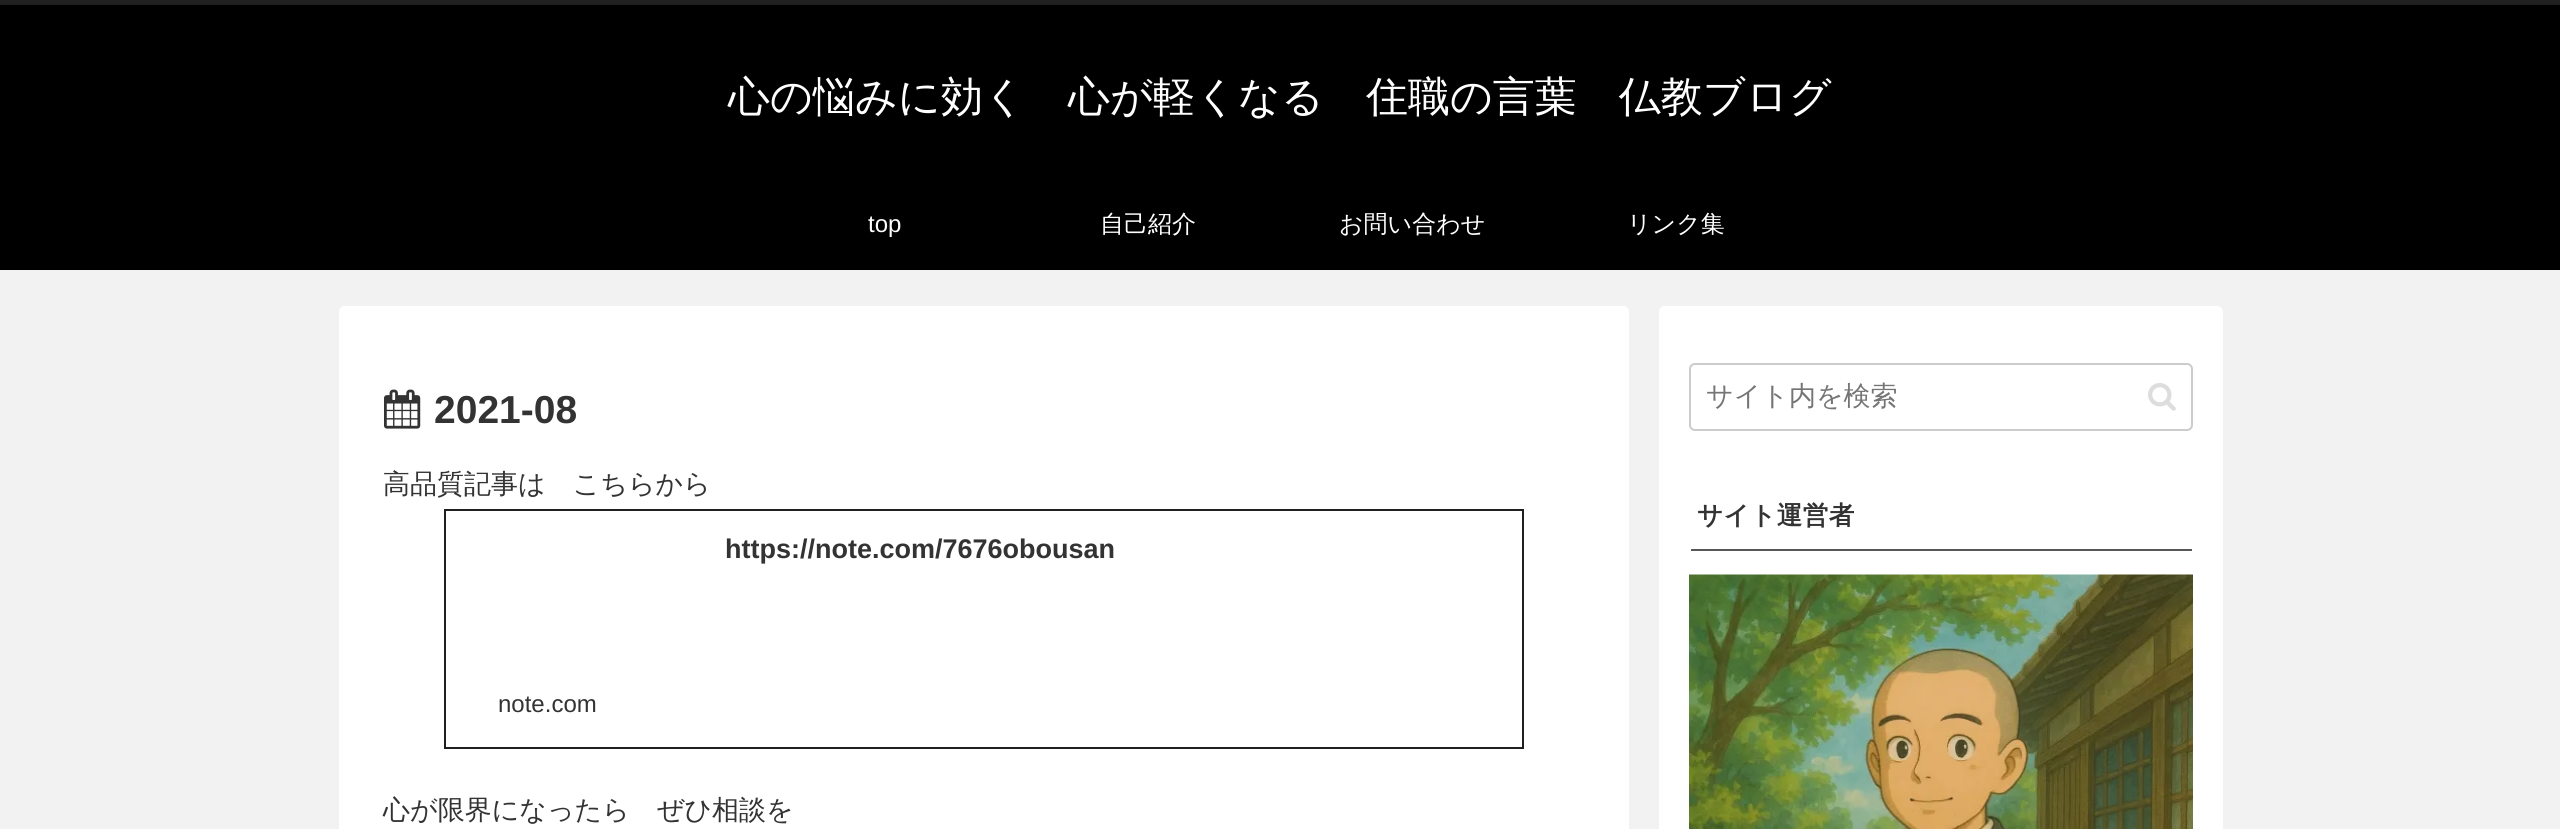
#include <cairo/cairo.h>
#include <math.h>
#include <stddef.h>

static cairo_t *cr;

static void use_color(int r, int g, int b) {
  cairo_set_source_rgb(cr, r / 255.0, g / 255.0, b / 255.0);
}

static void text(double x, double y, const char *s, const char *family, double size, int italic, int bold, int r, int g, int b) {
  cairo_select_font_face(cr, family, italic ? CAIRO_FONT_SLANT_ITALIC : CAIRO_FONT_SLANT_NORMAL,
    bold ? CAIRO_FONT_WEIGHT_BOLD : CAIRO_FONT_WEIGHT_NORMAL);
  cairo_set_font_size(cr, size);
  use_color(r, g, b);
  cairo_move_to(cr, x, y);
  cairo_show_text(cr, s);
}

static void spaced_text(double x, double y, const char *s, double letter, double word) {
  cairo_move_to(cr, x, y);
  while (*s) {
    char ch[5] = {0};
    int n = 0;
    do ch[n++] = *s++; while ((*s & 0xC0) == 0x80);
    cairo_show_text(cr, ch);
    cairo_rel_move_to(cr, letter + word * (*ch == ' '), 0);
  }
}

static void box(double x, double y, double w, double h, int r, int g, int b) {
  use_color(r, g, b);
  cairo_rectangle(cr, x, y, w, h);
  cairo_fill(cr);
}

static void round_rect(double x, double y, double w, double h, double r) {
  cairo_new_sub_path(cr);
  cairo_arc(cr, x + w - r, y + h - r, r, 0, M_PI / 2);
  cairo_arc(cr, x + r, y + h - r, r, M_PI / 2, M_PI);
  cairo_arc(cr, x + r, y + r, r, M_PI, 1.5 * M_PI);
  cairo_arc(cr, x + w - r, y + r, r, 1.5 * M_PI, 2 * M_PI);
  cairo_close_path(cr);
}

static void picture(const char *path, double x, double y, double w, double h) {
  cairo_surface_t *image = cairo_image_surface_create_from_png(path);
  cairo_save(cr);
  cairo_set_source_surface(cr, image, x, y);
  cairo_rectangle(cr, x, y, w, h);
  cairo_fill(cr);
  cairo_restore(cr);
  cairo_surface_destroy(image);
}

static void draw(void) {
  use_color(242, 242, 242);
  cairo_paint(cr);
  box(0, 5, 2560, 265, 0, 0, 0);
  box(0, 0, 2560, 5, 32, 32, 32);
  use_color(255, 255, 255);
  round_rect(339, 306, 1290, 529, 6);
  cairo_fill(cr);
  picture("img_01.png", 384, 389, 37, 40);
  cairo_rectangle(cr, 445, 510, 1078, 238);
  use_color(32, 32, 32);
  cairo_stroke(cr);
  use_color(255, 255, 255);
  round_rect(1659, 306, 564, 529, 6);
  cairo_fill(cr);
  round_rect(1690, 364, 502, 66, 5);
  use_color(204, 204, 204);
  cairo_stroke(cr);
  picture("img_02.png", 2148, 383, 28, 28);
  box(1691, 549, 501, 2, 89, 88, 87);
  picture("img_03.png", 1689, 574, 504, 255);
  text(728, 111, "心の悩みに効く　心が軽くなる　住職の言葉　仏教ブログ", "WenQuanYi Zen Hei Medium", 42, 0, 0, 255, 255, 255);
  text(868, 232, "top", "Liberation Sans", 24, 0, 0, 255, 255, 255);
  text(1100, 232, "自己紹介", "WenQuanYi Zen Hei Medium", 24, 0, 0, 255, 255, 255);
  text(1339, 232, "お問い合わせ", "WenQuanYi Zen Hei Medium", 24, 0, 0, 255, 255, 255);
  text(1627, 232, "リンク集", "WenQuanYi Zen Hei Medium", 24, 0, 0, 255, 255, 255);
  text(434, 423, "2021-08", "Liberation Sans", 39, 0, 1, 51, 51, 51);
  text(383, 493, "高品質記事は　こちらから", "WenQuanYi Zen Hei Medium", 27, 0, 0, 51, 51, 51);
  text(725, 558, "https://note.com/7676obousan", "Liberation Sans", 27, 0, 1, 51, 51, 51);
  text(498, 712, "note.com", "Liberation Sans", 24, 0, 0, 51, 51, 51);
  text(383, 819, "心が限界になったら　ぜひ相談を", "WenQuanYi Zen Hei Medium", 27, 0, 0, 51, 51, 51);
  text(1706, 405, "サイト内を検索", "WenQuanYi Zen Hei Medium", 27, 0, 0, 117, 117, 117);
  cairo_select_font_face(cr, "WenQuanYi Zen Hei", CAIRO_FONT_SLANT_NORMAL, CAIRO_FONT_WEIGHT_BOLD);
  cairo_set_font_size(cr, 25.5);
  use_color(51, 51, 51);
  spaced_text(1697, 524, "サイト運営者", 0.5, 0);
}

int main(void) {
  cairo_surface_t *surface = cairo_image_surface_create(CAIRO_FORMAT_RGB24, 2560, 829);
  cr = cairo_create(surface);
  cairo_font_options_t *options = cairo_font_options_create();
  cairo_font_options_set_hint_metrics(options, CAIRO_HINT_METRICS_OFF);
  cairo_font_options_set_hint_style(options, CAIRO_HINT_STYLE_NONE);
  cairo_set_font_options(cr, options);
  cairo_set_miter_limit(cr, 4);
  draw();
  cairo_surface_write_to_png(surface, "out.png");
  cairo_font_options_destroy(options);
  cairo_destroy(cr);
  cairo_surface_destroy(surface);
  return 0;
}
